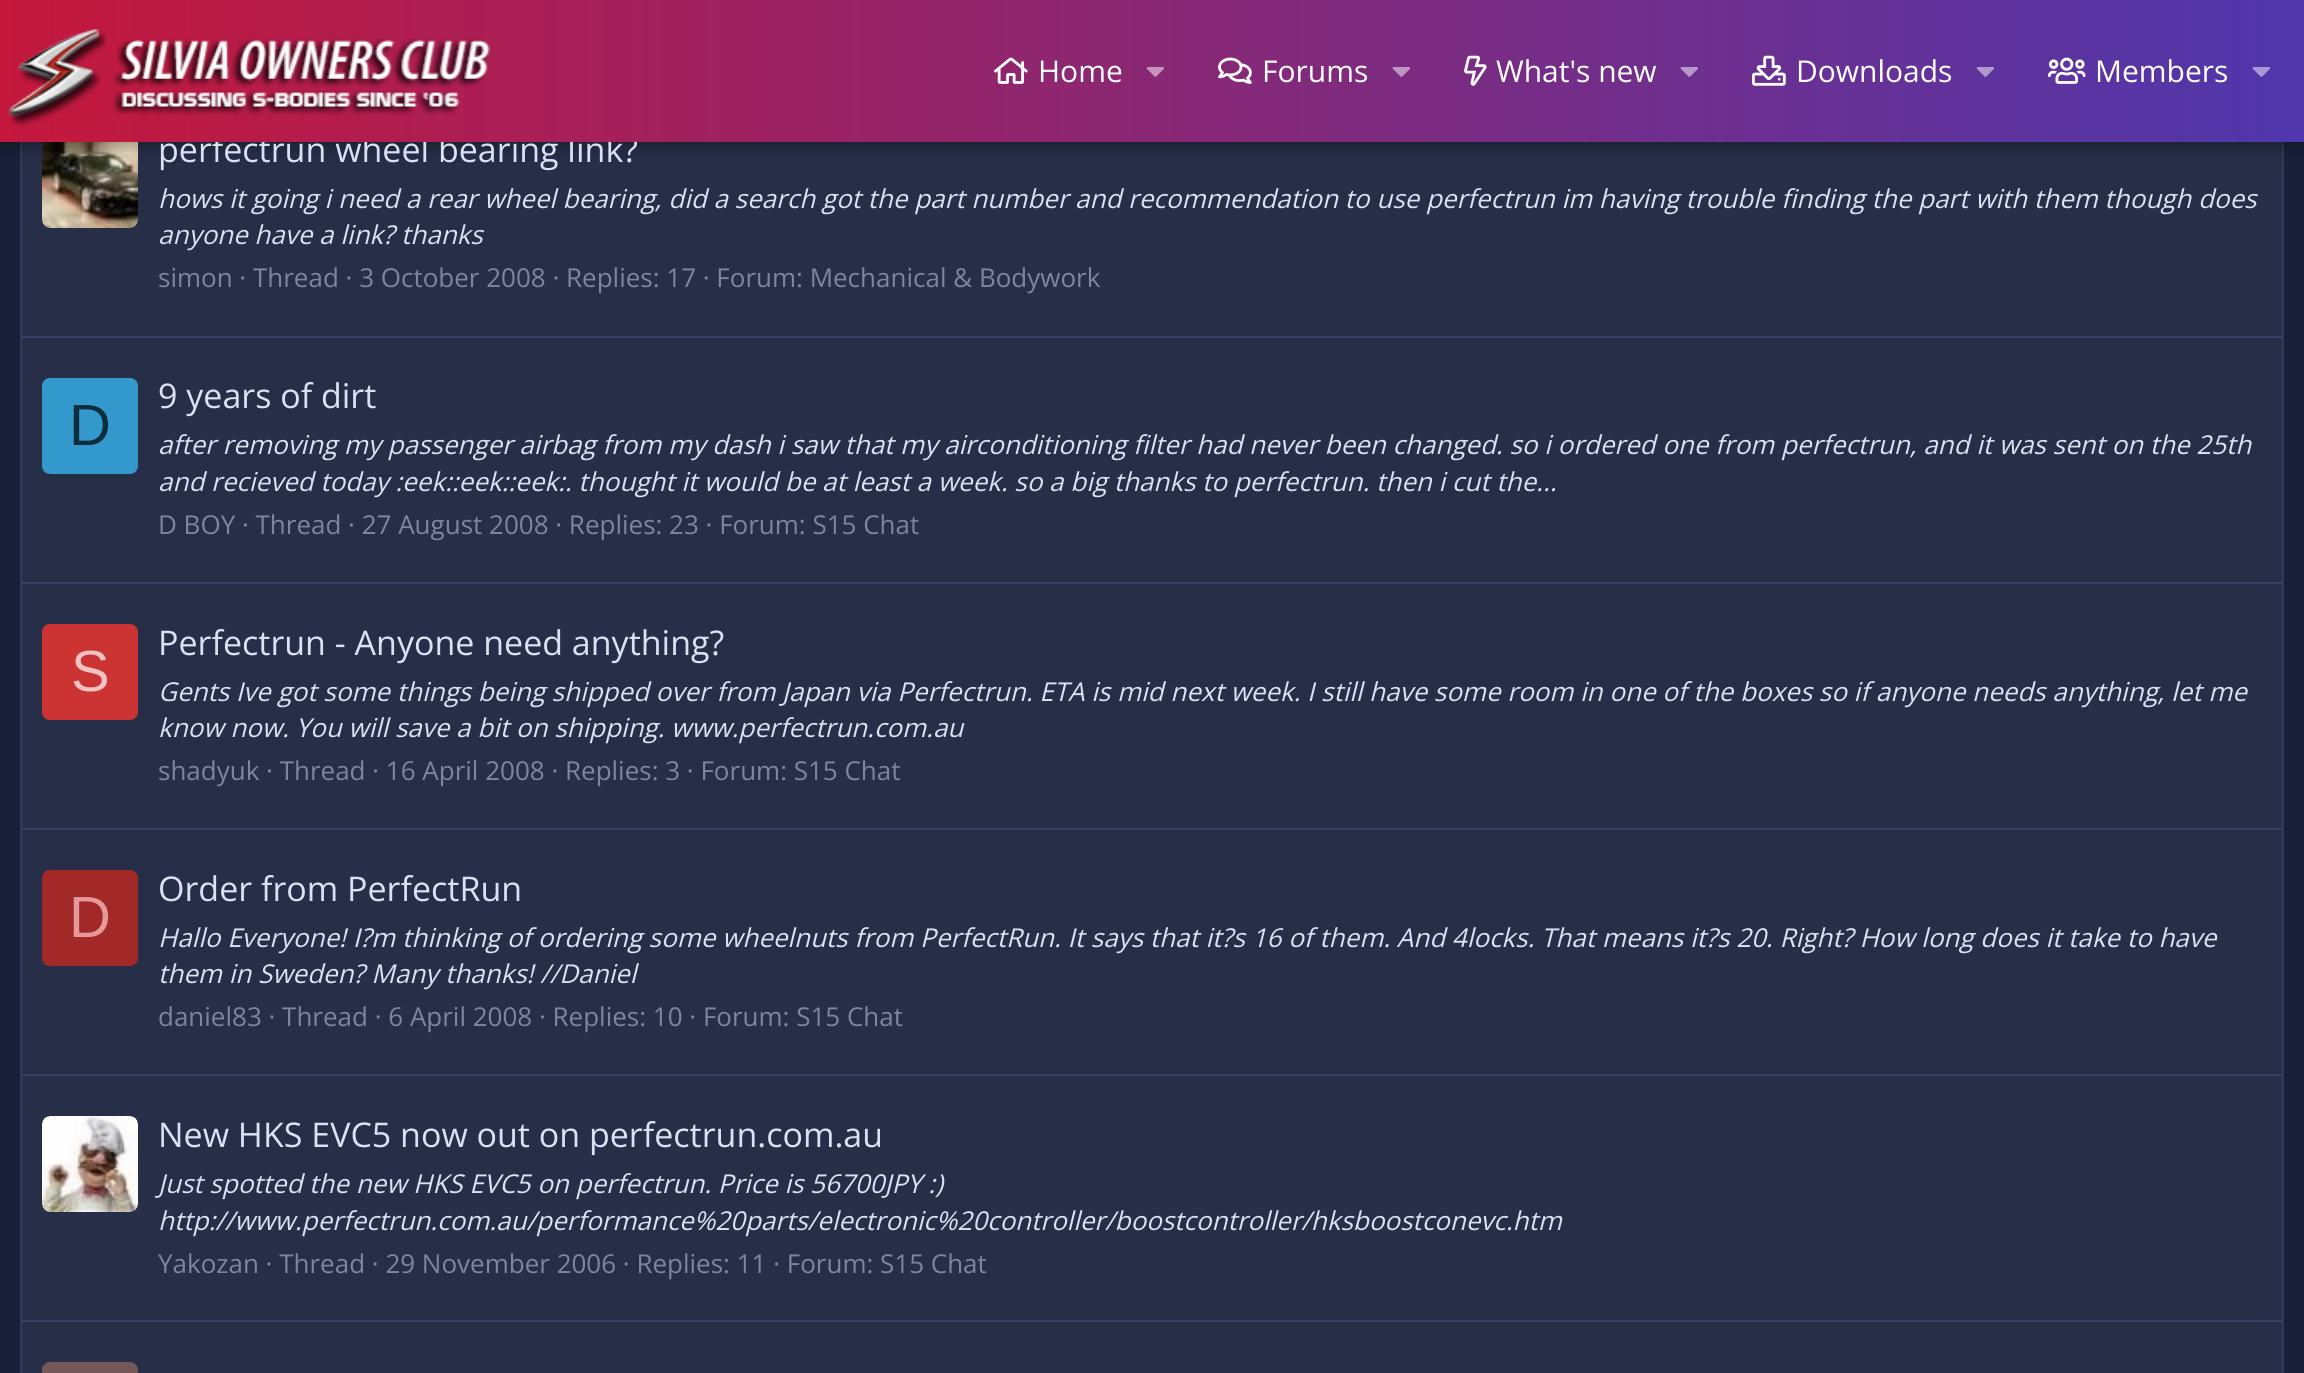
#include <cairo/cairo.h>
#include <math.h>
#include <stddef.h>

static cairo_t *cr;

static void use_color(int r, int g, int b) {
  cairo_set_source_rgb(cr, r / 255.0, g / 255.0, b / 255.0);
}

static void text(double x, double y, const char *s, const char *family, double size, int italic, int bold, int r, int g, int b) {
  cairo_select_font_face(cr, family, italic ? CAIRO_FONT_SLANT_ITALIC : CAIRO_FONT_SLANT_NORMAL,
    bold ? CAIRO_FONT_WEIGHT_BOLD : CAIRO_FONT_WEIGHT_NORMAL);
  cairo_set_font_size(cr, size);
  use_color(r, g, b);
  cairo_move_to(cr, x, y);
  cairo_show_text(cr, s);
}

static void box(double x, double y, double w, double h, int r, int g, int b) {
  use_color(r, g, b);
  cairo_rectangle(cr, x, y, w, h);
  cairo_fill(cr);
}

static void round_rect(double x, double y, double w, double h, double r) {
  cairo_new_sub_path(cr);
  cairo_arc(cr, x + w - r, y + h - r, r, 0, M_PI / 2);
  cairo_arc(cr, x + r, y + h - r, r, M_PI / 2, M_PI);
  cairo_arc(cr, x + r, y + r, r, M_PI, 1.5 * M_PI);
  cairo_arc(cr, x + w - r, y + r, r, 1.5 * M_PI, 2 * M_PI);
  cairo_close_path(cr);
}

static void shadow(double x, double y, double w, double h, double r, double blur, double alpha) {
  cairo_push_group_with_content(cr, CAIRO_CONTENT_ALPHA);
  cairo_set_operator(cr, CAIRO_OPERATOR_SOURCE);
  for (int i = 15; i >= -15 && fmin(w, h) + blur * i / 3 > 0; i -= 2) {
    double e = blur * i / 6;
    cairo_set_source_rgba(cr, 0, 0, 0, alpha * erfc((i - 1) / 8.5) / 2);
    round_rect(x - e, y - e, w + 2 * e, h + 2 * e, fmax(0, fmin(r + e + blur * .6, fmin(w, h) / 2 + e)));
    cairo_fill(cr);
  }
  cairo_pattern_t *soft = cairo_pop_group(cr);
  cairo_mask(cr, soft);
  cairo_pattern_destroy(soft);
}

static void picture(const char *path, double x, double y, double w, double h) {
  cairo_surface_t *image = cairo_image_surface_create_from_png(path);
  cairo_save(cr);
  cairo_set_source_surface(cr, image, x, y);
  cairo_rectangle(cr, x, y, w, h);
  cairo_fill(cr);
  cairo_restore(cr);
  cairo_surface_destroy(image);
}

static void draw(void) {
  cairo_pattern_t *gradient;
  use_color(24, 33, 57);
  cairo_paint(cr);
  box(22, 142, 2260, 1231, 39, 46, 72);
  cairo_new_path(cr);
  cairo_move_to(cr, 2281, 93);
  cairo_curve_to(cr, 2282.5, 94.5, 2283, 96, 2283, 98);
  cairo_line_to(cr, 2283, 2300);
  cairo_curve_to(cr, 2283, 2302, 2282.5, 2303.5, 2281, 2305);
  use_color(48, 57, 89);
  cairo_stroke(cr);
  cairo_new_path(cr);
  cairo_move_to(cr, 23, 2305);
  cairo_curve_to(cr, 21.5, 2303.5, 21, 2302, 21, 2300);
  cairo_line_to(cr, 21, 98);
  cairo_curve_to(cr, 21, 96, 21.5, 94.5, 23, 93);
  cairo_stroke(cr);
  picture("img_12.png", 42, 142, 96, 86);
  use_color(0, 0, 0);
  shadow(-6, -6, 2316, 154, 0, 8, 0.3);
  box(22, 336, 2260, 2, 55, 65, 102);
  use_color(51, 153, 204);
  round_rect(42, 378, 96, 96, 8);
  cairo_fill(cr);
  box(22, 582, 2260, 2, 55, 65, 102);
  use_color(204, 51, 51);
  round_rect(42, 624, 96, 96, 8);
  cairo_fill(cr);
  box(22, 828, 2260, 2, 55, 65, 102);
  use_color(163, 41, 41);
  round_rect(42, 870, 96, 96, 8);
  cairo_fill(cr);
  box(22, 1074, 2260, 2, 55, 65, 102);
  picture("img_13.png", 42, 1116, 96, 96);
  box(22, 1320, 2260, 2, 55, 65, 102);
  use_color(117, 87, 87);
  round_rect(42, 1362, 96, 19, 8);
  cairo_fill(cr);
  text(158, 162, "perfectrun wheel bearing link?", "Open Sans", 34, 0, 0, 218, 225, 243);
  gradient = cairo_pattern_create_linear(0, 71, 2304, 71);
  cairo_pattern_add_color_stop_rgba(gradient, 0, 0.769, 0.094, 0.235, 1);
  cairo_pattern_add_color_stop_rgba(gradient, 1, 0.31, 0.216, 0.675, 1);
  cairo_set_source(cr, gradient);
  cairo_pattern_destroy(gradient);
  cairo_rectangle(cr, 0, 0, 2304, 142);
  cairo_fill(cr);
  picture("img_11.png", 2252, 67, 18, 10);
  picture("img_09.png", 1976, 67, 18, 10);
  picture("img_07.png", 1680, 67, 18, 10);
  picture("img_05.png", 1392, 67, 18, 10);
  picture("img_03.png", 1146, 67, 18, 10);
  text(2095, 82, "Members", "Open Sans", 30, 0, 0, 255, 255, 255);
  picture("img_10.png", 2048, 57, 38, 27);
  text(1796, 82, "Downloads", "Open Sans", 30, 0, 0, 255, 255, 255);
  picture("img_08.png", 1752, 55, 34, 31);
  text(1496, 82, "What's new", "Open Sans", 30, 0, 0, 255, 255, 255);
  picture("img_06.png", 1464, 55, 23, 31);
  text(1262, 82, "Forums", "Open Sans", 30, 0, 0, 255, 255, 255);
  picture("img_04.png", 1218, 57, 34, 27);
  text(1038, 82, "Home", "Open Sans", 30, 0, 0, 255, 255, 255);
  picture("img_02.png", 994, 57, 34, 27);
  picture("img_01.png", 9, 29, 482, 98);
  text(158, 208, "hows it going i need a rear wheel bearing, did a search got the part number and recommendation to use perfectrun im having trouble finding the part with them though does", "Open Sans", 26, 1, 0, 218, 225, 243);
  text(158, 244, "anyone have a link? thanks", "Open Sans", 26, 1, 0, 218, 225, 243);
  text(158, 287, "simon · Thread · 3 October 2008 · Replies: 17 · Forum: Mechanical & Bodywork", "Open Sans", 26, 0, 0, 124, 134, 157);
  text(69, 445, "D", "Liberation Sans", 58, 0, 0, 15, 46, 61);
  text(158, 408, "9 years of dirt", "Open Sans", 34, 0, 0, 218, 225, 243);
  text(158, 454, "after removing my passenger airbag from my dash i saw that my airconditioning filter had never been changed. so i ordered one from perfectrun, and it was sent on the 25th", "Open Sans", 26, 1, 0, 218, 225, 243);
  text(158, 491, "and recieved today :eek::eek::eek:. thought it would be at least a week. so a big thanks to perfectrun. then i cut the...", "Open Sans", 26, 1, 0, 218, 225, 243);
  text(158, 534, "D BOY · Thread · 27 August 2008 · Replies: 23 · Forum: S15 Chat", "Open Sans", 26, 0, 0, 124, 134, 157);
  text(71, 691, "S", "Liberation Sans", 58, 0, 0, 240, 194, 194);
  text(158, 655, "Perfectrun - Anyone need anything?", "Open Sans", 34, 0, 0, 218, 225, 243);
  text(158, 701, "Gents Ive got some things being shipped over from Japan via Perfectrun. ETA is mid next week. I still have some room in one of the boxes so if anyone needs anything, let me", "Open Sans", 26, 1, 0, 218, 225, 243);
  text(158, 737, "know now. You will save a bit on shipping. www.perfectrun.com.au", "Open Sans", 26, 1, 0, 218, 225, 243);
  text(158, 780, "shadyuk · Thread · 16 April 2008 · Replies: 3 · Forum: S15 Chat", "Open Sans", 26, 0, 0, 124, 134, 157);
  text(69, 937, "D", "Liberation Sans", 58, 0, 0, 230, 153, 153);
  text(158, 901, "Order from PerfectRun", "Open Sans", 34, 0, 0, 218, 225, 243);
  text(158, 947, "Hallo Everyone! I?m thinking of ordering some wheelnuts from PerfectRun. It says that it?s 16 of them. And 4locks. That means it?s 20. Right? How long does it take to have", "Open Sans", 26, 1, 0, 218, 225, 243);
  text(158, 983, "them in Sweden? Many thanks! //Daniel", "Open Sans", 26, 1, 0, 218, 225, 243);
  text(158, 1026, "daniel83 · Thread · 6 April 2008 · Replies: 10 · Forum: S15 Chat", "Open Sans", 26, 0, 0, 124, 134, 157);
  text(158, 1147, "New HKS EVC5 now out on perfectrun.com.au", "Open Sans", 34, 0, 0, 218, 225, 243);
  text(158, 1193, "Just spotted the new HKS EVC5 on perfectrun. Price is 56700JPY :)", "Open Sans", 26, 1, 0, 218, 225, 243);
  text(158, 1230, "http://www.perfectrun.com.au/performance%20parts/electronic%20controller/boostcontroller/hksboostconevc.htm", "Open Sans", 26, 1, 0, 218, 225, 243);
  text(158, 1273, "Yakozan · Thread · 29 November 2006 · Replies: 11 · Forum: S15 Chat", "Open Sans", 26, 0, 0, 124, 134, 157);
}

int main(void) {
  cairo_surface_t *surface = cairo_image_surface_create(CAIRO_FORMAT_RGB24, 2304, 1373);
  cr = cairo_create(surface);
  cairo_font_options_t *options = cairo_font_options_create();
  cairo_font_options_set_hint_metrics(options, CAIRO_HINT_METRICS_OFF);
  cairo_font_options_set_hint_style(options, CAIRO_HINT_STYLE_NONE);
  cairo_set_font_options(cr, options);
  cairo_set_miter_limit(cr, 4);
  draw();
  cairo_surface_write_to_png(surface, "out.png");
  cairo_font_options_destroy(options);
  cairo_destroy(cr);
  cairo_surface_destroy(surface);
  return 0;
}
